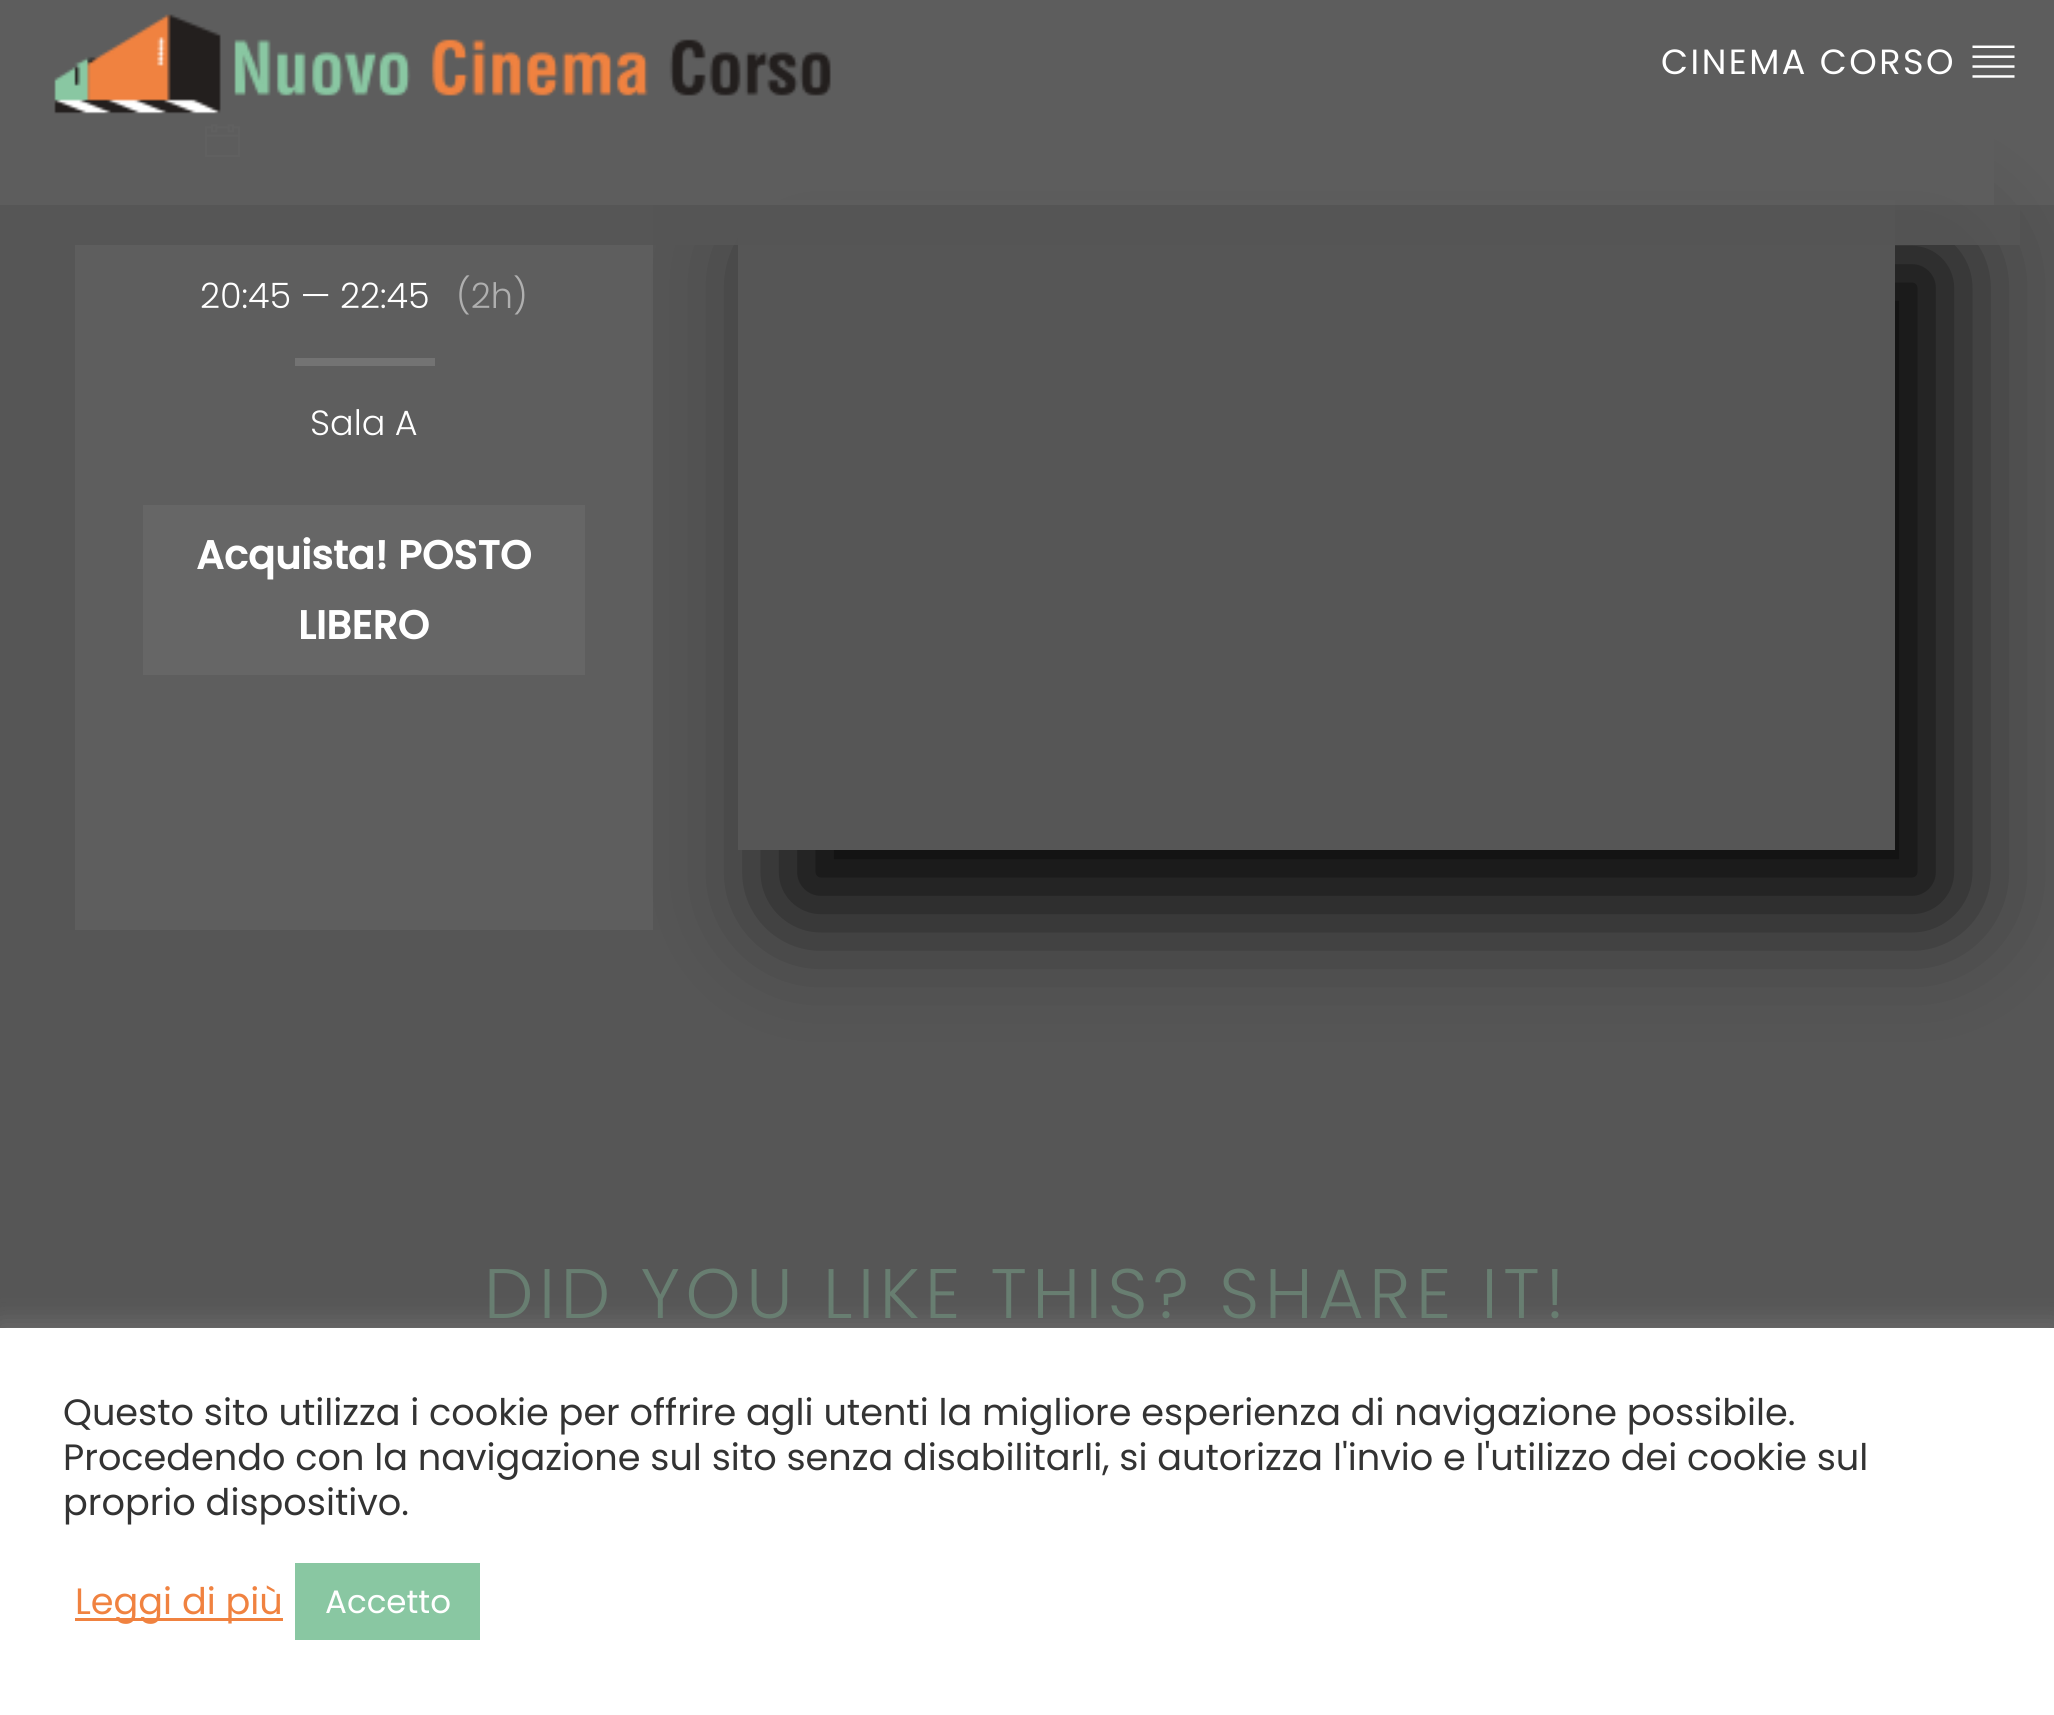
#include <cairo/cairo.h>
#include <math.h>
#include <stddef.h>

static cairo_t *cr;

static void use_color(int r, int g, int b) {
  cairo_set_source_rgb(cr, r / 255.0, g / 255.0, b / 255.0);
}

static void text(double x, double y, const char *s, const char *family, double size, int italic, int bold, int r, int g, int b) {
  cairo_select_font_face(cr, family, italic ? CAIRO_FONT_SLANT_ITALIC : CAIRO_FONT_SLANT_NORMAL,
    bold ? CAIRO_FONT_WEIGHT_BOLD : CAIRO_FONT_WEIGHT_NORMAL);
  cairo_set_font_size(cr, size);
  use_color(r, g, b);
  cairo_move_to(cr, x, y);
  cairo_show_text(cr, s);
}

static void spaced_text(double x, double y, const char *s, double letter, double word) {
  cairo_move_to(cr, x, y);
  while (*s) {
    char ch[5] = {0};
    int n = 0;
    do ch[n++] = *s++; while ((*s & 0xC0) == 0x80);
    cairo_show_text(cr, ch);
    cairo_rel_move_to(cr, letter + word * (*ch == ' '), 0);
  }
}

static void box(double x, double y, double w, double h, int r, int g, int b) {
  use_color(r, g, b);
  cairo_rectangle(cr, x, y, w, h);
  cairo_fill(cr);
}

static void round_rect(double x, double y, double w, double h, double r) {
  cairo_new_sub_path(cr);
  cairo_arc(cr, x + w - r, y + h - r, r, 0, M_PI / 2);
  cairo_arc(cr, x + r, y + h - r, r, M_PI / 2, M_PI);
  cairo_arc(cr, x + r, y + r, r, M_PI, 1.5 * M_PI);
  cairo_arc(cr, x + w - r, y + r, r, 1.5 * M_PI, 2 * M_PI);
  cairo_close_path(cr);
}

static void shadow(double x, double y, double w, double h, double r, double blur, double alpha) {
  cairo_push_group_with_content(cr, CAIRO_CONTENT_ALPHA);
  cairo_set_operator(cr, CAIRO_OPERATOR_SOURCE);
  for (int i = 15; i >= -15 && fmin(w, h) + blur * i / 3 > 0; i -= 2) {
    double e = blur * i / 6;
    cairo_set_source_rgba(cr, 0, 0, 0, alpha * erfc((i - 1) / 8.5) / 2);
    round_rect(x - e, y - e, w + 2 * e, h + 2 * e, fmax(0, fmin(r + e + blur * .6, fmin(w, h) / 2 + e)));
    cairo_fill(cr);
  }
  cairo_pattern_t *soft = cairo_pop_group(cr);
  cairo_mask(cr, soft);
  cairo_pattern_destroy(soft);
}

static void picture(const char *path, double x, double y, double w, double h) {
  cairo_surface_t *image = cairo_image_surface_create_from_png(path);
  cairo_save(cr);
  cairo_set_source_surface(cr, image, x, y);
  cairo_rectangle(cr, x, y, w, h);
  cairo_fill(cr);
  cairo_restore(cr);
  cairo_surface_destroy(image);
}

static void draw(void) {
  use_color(86, 86, 86);
  cairo_paint(cr);
  picture("img_03.png", 205, 124, 35, 34);
  cairo_save(cr);
  cairo_set_fill_rule(cr, CAIRO_FILL_RULE_EVEN_ODD);
  cairo_new_path(cr);
  cairo_move_to(cr, 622, 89);
  cairo_line_to(cr, 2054, 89);
  cairo_line_to(cr, 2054, 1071);
  cairo_line_to(cr, 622, 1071);
  cairo_close_path(cr);
  cairo_move_to(cr, 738, 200);
  cairo_line_to(cr, 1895, 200);
  cairo_line_to(cr, 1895, 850);
  cairo_line_to(cr, 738, 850);
  cairo_close_path(cr);
  cairo_clip(cr);
  use_color(0, 0, 0);
  shadow(788, 255, 1157, 650, 0, 55, 0.92);
  cairo_restore(cr);
  cairo_set_source_rgba(cr, 1, 1, 1, 0.05);
  cairo_rectangle(cr, 75, 0, 578, 930);
  cairo_fill(cr);
  cairo_set_source_rgba(cr, 0.337, 0.337, 0.337, 0.98);
  cairo_rectangle(cr, 75, 0, 1919, 205);
  cairo_fill(cr);
  cairo_set_source_rgba(cr, 1, 1, 1, 0.04);
  cairo_rectangle(cr, 0, 0, 2054, 205);
  cairo_fill(cr);
  picture("img_01.png", 54, 14, 777, 100);
  picture("img_02.png", 1972, 45, 43, 33);
  cairo_set_source_rgba(cr, 0.337, 0.337, 0.337, 0.9);
  cairo_rectangle(cr, 75, 205, 1945, 40);
  cairo_fill(cr);
  box(295, 358, 140, 8, 115, 115, 115);
  cairo_set_source_rgba(cr, 1, 1, 1, 0.05);
  cairo_rectangle(cr, 143, 505, 442, 170);
  cairo_fill(cr);
  use_color(172, 171, 171);
  shadow(0, 1325, 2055, 388, 0, 12.5, 0.3);
  box(0, 1328, 2054, 387, 255, 255, 255);
  box(75, 1618, 208, 3, 240, 130, 64);
  box(295, 1563, 185, 77, 137, 199, 162);
  cairo_select_font_face(cr, "Poppins", CAIRO_FONT_SLANT_NORMAL, CAIRO_FONT_WEIGHT_NORMAL);
  cairo_set_font_size(cr, 35);
  use_color(255, 255, 255);
  spaced_text(1661, 74, "CINEMA CORSO", 2.5, 0);
  text(200, 308, "20:45 — 22:45", "Poppins Light", 35, 0, 0, 255, 255, 255);
  text(456, 308, "(2h)", "Poppins Light", 35, 0, 0, 175, 175, 175);
  text(310, 435, "Sala A", "Poppins Light", 35, 0, 0, 255, 255, 255);
  text(196, 569, "Acquista! POSTO", "Poppins", 40, 0, 1, 255, 255, 255);
  text(298, 639, "LIBERO", "Poppins", 40, 0, 1, 255, 255, 255);
  cairo_select_font_face(cr, "Poppins Light", CAIRO_FONT_SLANT_NORMAL, CAIRO_FONT_WEIGHT_NORMAL);
  cairo_set_font_size(cr, 70);
  use_color(104, 126, 113);
  spaced_text(484, 1318, "DID YOU LIKE THIS? SHARE IT!", 5.6, 0);
  text(63, 1425, "Questo sito utilizza i cookie per offrire agli utenti la migliore esperienza di navigazione possibile.", "Poppins", 36.65, 0, 0, 51, 51, 51);
  text(63, 1470, "Procedendo con la navigazione sul sito senza disabilitarli, si autorizza l'invio e l'utilizzo dei cookie sul", "Poppins", 36.65, 0, 0, 51, 51, 51);
  text(63, 1515, "proprio dispositivo.", "Poppins", 36.65, 0, 0, 51, 51, 51);
  text(75, 1614, "Leggi di più", "Poppins", 36.65, 0, 0, 240, 130, 64);
  text(325, 1613, "Accetto", "Poppins", 32.5, 0, 0, 255, 255, 255);
}

int main(void) {
  cairo_surface_t *surface = cairo_image_surface_create(CAIRO_FORMAT_RGB24, 2054, 1715);
  cr = cairo_create(surface);
  cairo_font_options_t *options = cairo_font_options_create();
  cairo_font_options_set_hint_metrics(options, CAIRO_HINT_METRICS_OFF);
  cairo_font_options_set_hint_style(options, CAIRO_HINT_STYLE_NONE);
  cairo_set_font_options(cr, options);
  cairo_set_miter_limit(cr, 4);
  draw();
  cairo_surface_write_to_png(surface, "out.png");
  cairo_font_options_destroy(options);
  cairo_destroy(cr);
  cairo_surface_destroy(surface);
  return 0;
}
